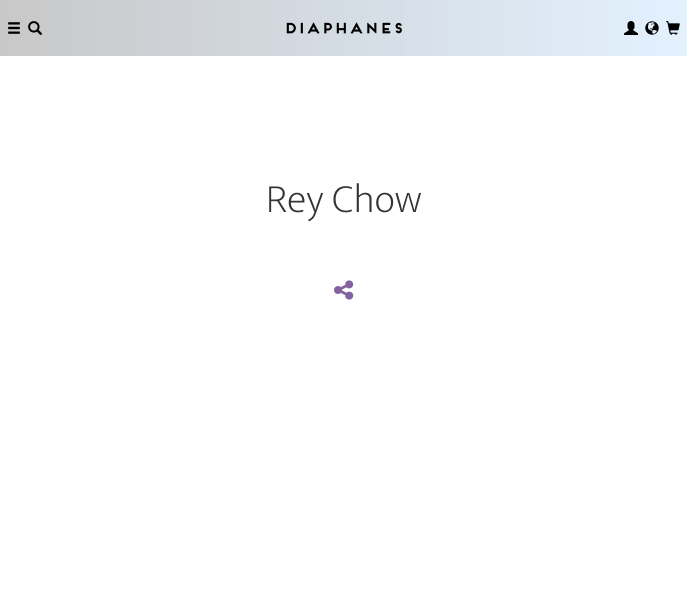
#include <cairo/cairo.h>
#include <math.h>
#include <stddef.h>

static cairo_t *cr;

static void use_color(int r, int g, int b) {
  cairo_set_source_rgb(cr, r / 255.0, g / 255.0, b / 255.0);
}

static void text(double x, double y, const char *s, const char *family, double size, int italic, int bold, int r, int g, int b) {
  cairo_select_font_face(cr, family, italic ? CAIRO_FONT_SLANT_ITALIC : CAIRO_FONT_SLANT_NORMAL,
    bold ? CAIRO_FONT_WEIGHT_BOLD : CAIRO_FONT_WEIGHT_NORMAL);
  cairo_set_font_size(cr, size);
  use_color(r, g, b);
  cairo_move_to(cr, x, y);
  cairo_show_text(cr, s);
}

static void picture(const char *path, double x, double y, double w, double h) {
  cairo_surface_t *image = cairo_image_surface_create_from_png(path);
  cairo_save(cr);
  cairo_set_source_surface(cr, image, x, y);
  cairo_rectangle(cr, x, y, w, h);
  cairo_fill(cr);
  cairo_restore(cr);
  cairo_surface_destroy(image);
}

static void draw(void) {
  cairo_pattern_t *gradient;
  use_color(255, 255, 255);
  cairo_paint(cr);
  gradient = cairo_pattern_create_linear(0, 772, 687, 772);
  cairo_pattern_add_color_stop_rgba(gradient, 0, 0.784, 0.784, 0.784, 1);
  cairo_pattern_add_color_stop_rgba(gradient, 1, 0.918, 0.961, 1, 1);
  cairo_set_source(cr, gradient);
  cairo_pattern_destroy(gradient);
  cairo_rectangle(cr, 12, 0, 675, 56);
  cairo_fill(cr);
  gradient = cairo_pattern_create_linear(0, 28, 687, 28);
  cairo_pattern_add_color_stop_rgba(gradient, 0, 0.784, 0.784, 0.784, 1);
  cairo_pattern_add_color_stop_rgba(gradient, 1, 0.875, 0.937, 1, 0.67);
  cairo_set_source(cr, gradient);
  cairo_pattern_destroy(gradient);
  cairo_rectangle(cr, 0, 0, 687, 56);
  cairo_fill(cr);
  picture("img_01.png", 8, 22, 12, 12);
  picture("img_02.png", 28, 21, 15, 14);
  picture("img_03.png", 624, 21, 14, 14);
  picture("img_04.png", 645, 21, 14, 14);
  picture("img_05.png", 666, 21, 14, 14);
  picture("img_06.png", 334, 280, 20, 20);
  text(283, 33, "Diaphanes", "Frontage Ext", 14, 0, 1, 0, 0, 0);
  text(266, 212, "Rey Chow", "Mukta Vaani Light", 40.5, 0, 0, 51, 51, 51);
}

int main(void) {
  cairo_surface_t *surface = cairo_image_surface_create(CAIRO_FORMAT_RGB24, 687, 600);
  cr = cairo_create(surface);
  cairo_font_options_t *options = cairo_font_options_create();
  cairo_font_options_set_hint_metrics(options, CAIRO_HINT_METRICS_OFF);
  cairo_font_options_set_hint_style(options, CAIRO_HINT_STYLE_NONE);
  cairo_set_font_options(cr, options);
  cairo_set_miter_limit(cr, 4);
  draw();
  cairo_surface_write_to_png(surface, "out.png");
  cairo_font_options_destroy(options);
  cairo_destroy(cr);
  cairo_surface_destroy(surface);
  return 0;
}
